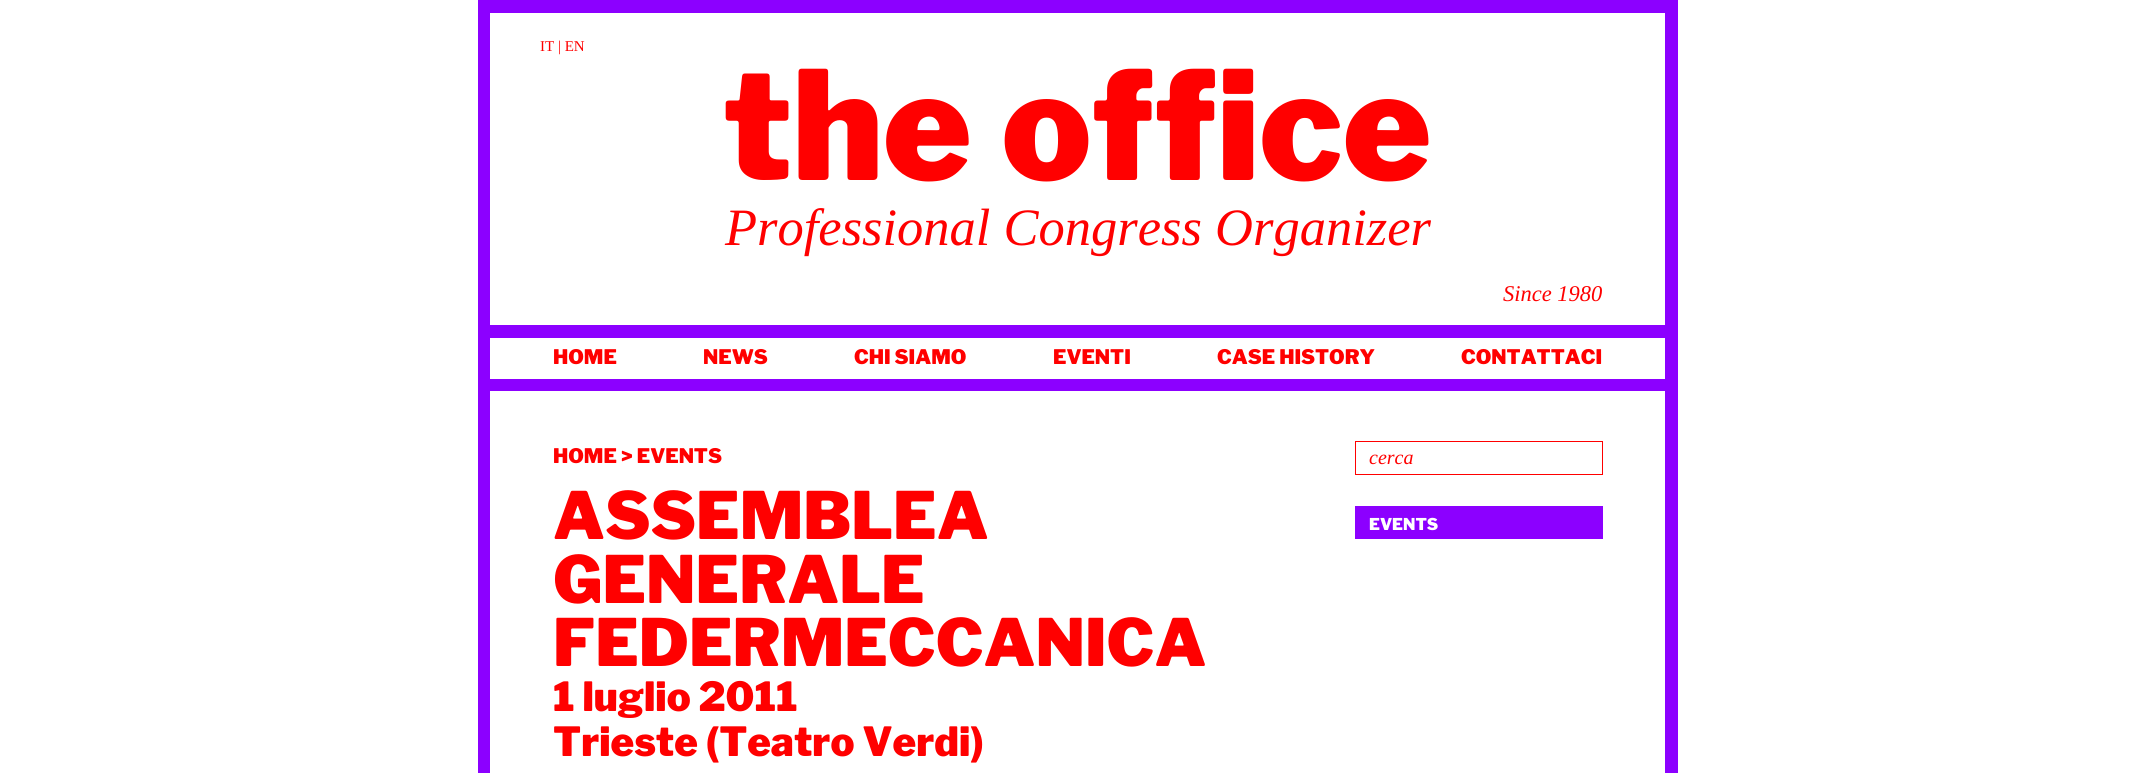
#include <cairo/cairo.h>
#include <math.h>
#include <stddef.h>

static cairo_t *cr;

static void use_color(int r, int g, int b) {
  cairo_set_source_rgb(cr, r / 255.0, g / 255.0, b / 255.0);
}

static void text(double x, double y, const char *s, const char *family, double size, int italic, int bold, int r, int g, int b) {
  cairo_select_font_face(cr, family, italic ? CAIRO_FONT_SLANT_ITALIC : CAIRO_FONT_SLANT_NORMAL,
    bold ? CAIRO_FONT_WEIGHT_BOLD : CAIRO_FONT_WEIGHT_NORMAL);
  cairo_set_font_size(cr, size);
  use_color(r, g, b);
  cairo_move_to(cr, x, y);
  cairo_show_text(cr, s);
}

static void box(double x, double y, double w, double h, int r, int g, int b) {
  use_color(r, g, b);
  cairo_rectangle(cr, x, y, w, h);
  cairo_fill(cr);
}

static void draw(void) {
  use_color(255, 255, 255);
  cairo_paint(cr);
  box(478, 0, 1200, 773, 140, 0, 255);
  box(490, 13, 1175, 312, 255, 255, 255);
  box(490, 338, 1175, 41, 255, 255, 255);
  box(490, 391, 1175, 382, 255, 255, 255);
  cairo_rectangle(cr, 1355.5, 441.5, 247, 33);
  use_color(255, 0, 0);
  cairo_set_line_width(cr, 1);
  cairo_stroke(cr);
  box(1355, 506, 248, 33, 140, 0, 255);
  text(540, 51, "IT | EN", "Liberation Serif", 15, 0, 0, 255, 0, 0);
  text(723, 180, "the office", "Libre Franklin Thin", 150, 0, 0, 255, 0, 0);
  text(725, 245, "Professional Congress Organizer", "Liberation Serif", 52.5, 1, 0, 255, 0, 0);
  text(1503, 301, "Since 1980", "Liberation Serif", 22.5, 1, 0, 255, 0, 0);
  text(553, 364, "HOME", "Libre Franklin Thin", 20, 0, 0, 255, 0, 0);
  text(703, 364, "NEWS", "Libre Franklin Thin", 20, 0, 0, 255, 0, 0);
  text(854, 364, "CHI SIAMO", "Libre Franklin Thin", 20, 0, 0, 255, 0, 0);
  text(1053, 364, "EVENTI", "Libre Franklin Thin", 20, 0, 0, 255, 0, 0);
  text(1217, 364, "CASE HISTORY", "Libre Franklin Thin", 20, 0, 0, 255, 0, 0);
  text(1461, 364, "CONTATTACI", "Libre Franklin Thin", 20, 0, 0, 255, 0, 0);
  text(553, 463, "HOME > EVENTS", "Libre Franklin Thin", 20, 0, 0, 255, 0, 0);
  text(553, 539, "ASSEMBLEA", "Libre Franklin Thin", 65, 0, 0, 255, 0, 0);
  text(553, 603, "GENERALE", "Libre Franklin Thin", 65, 0, 0, 255, 0, 0);
  text(553, 666, "FEDERMECCANICA", "Libre Franklin Thin", 65, 0, 0, 255, 0, 0);
  text(553, 711, "1 luglio 2011", "Libre Franklin Thin", 40, 0, 0, 255, 0, 0);
  text(553, 756, "Trieste (Teatro Verdi)", "Libre Franklin Thin", 40, 0, 0, 255, 0, 0);
  text(1369, 464, "cerca", "Liberation Serif", 20, 1, 0, 255, 0, 0);
  text(1369, 530, "EVENTS", "Libre Franklin Thin", 16.25, 0, 0, 255, 255, 255);
}

int main(void) {
  cairo_surface_t *surface = cairo_image_surface_create(CAIRO_FORMAT_RGB24, 2154, 773);
  cr = cairo_create(surface);
  cairo_font_options_t *options = cairo_font_options_create();
  cairo_font_options_set_hint_metrics(options, CAIRO_HINT_METRICS_OFF);
  cairo_font_options_set_hint_style(options, CAIRO_HINT_STYLE_NONE);
  cairo_set_font_options(cr, options);
  cairo_set_miter_limit(cr, 4);
  draw();
  cairo_surface_write_to_png(surface, "out.png");
  cairo_font_options_destroy(options);
  cairo_destroy(cr);
  cairo_surface_destroy(surface);
  return 0;
}
